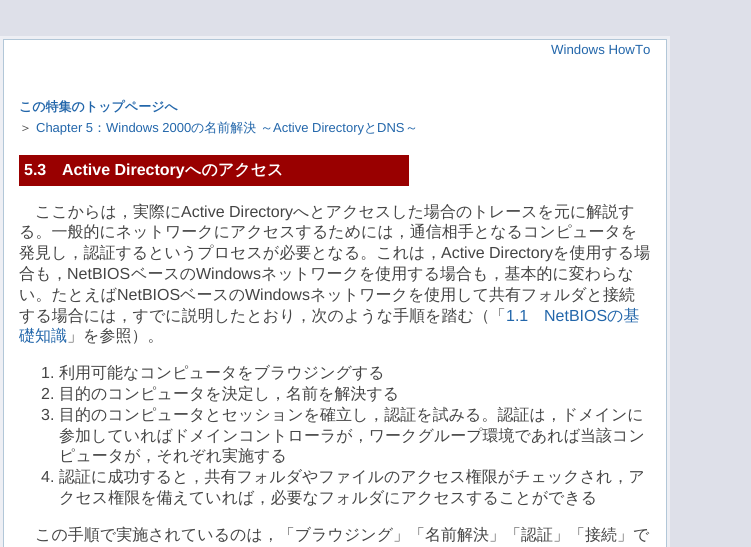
#include <cairo/cairo.h>
#include <math.h>
#include <stddef.h>

static cairo_t *cr;

static void use_color(int r, int g, int b) {
  cairo_set_source_rgb(cr, r / 255.0, g / 255.0, b / 255.0);
}

static void text(double x, double y, const char *s, const char *family, double size, int italic, int bold, int r, int g, int b) {
  cairo_select_font_face(cr, family, italic ? CAIRO_FONT_SLANT_ITALIC : CAIRO_FONT_SLANT_NORMAL,
    bold ? CAIRO_FONT_WEIGHT_BOLD : CAIRO_FONT_WEIGHT_NORMAL);
  cairo_set_font_size(cr, size);
  use_color(r, g, b);
  cairo_move_to(cr, x, y);
  cairo_show_text(cr, s);
}

static void box(double x, double y, double w, double h, int r, int g, int b) {
  use_color(r, g, b);
  cairo_rectangle(cr, x, y, w, h);
  cairo_fill(cr);
}

static void draw(void) {
  use_color(222, 224, 233);
  cairo_paint(cr);
  box(4, 40, 662, 507, 255, 255, 255);
  cairo_rectangle(cr, 1.5, 37.5, 667, 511);
  use_color(238, 239, 244);
  cairo_set_line_width(cr, 3);
  cairo_stroke(cr);
  cairo_rectangle(cr, 3.5, 39.5, 663, 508);
  use_color(178, 199, 216);
  cairo_set_line_width(cr, 1);
  cairo_stroke(cr);
  box(19, 155, 390, 31, 153, 0, 0);
  text(551, 54, "Windows HowTo", "Liberation Sans", 13.25, 0, 0, 34, 102, 170);
  text(19, 111, "この特集のトップページへ", "WenQuanYi Zen Hei", 13, 0, 1, 34, 102, 170);
  text(19, 132, "＞", "WenQuanYi Zen Hei Medium", 13, 0, 0, 68, 68, 68);
  text(36, 132, "Chapter 5", "Liberation Sans", 13, 0, 0, 34, 102, 170);
  text(93, 132, "：", "WenQuanYi Zen Hei Medium", 13, 0, 0, 34, 102, 170);
  text(106, 132, "Windows 2000", "Liberation Sans", 13, 0, 0, 34, 102, 170);
  text(191, 132, "の名前解決 ～", "WenQuanYi Zen Hei Medium", 13, 0, 0, 34, 102, 170);
  text(273, 132, "Active Directory", "Liberation Sans", 13, 0, 0, 34, 102, 170);
  text(364, 132, "と", "WenQuanYi Zen Hei Medium", 13, 0, 0, 34, 102, 170);
  text(377, 132, "DNS", "Liberation Sans", 13, 0, 0, 34, 102, 170);
  text(405, 132, "～", "WenQuanYi Zen Hei Medium", 13, 0, 0, 34, 102, 170);
  text(24, 175, "5.3", "Liberation Sans", 16, 0, 1, 255, 255, 255);
  text(62, 175, "Active Directory", "Liberation Sans", 16, 0, 1, 255, 255, 255);
  text(185, 175, "へのアクセス", "WenQuanYi Zen Hei", 16, 0, 1, 255, 255, 255);
  text(35, 217, "ここからは，実際に", "WenQuanYi Zen Hei Medium", 16, 0, 0, 68, 68, 68);
  text(181, 217, "Active Directory", "Liberation Sans", 16, 0, 0, 68, 68, 68);
  text(293, 217, "へとアクセスした場合のトレースを元に解説す", "WenQuanYi Zen Hei Medium", 16, 0, 0, 68, 68, 68);
  text(19, 237, "る。一般的にネットワークにアクセスするためには，通信相手となるコンピュータを", "WenQuanYi Zen Hei Medium", 16, 0, 0, 68, 68, 68);
  text(19, 258, "発見し，認証するというプロセスが必要となる。これは，", "WenQuanYi Zen Hei Medium", 16, 0, 0, 68, 68, 68);
  text(441, 258, "Active Directory", "Liberation Sans", 16, 0, 0, 68, 68, 68);
  text(553, 258, "を使用する場", "WenQuanYi Zen Hei Medium", 16, 0, 0, 68, 68, 68);
  text(19, 279, "合も，", "WenQuanYi Zen Hei Medium", 16, 0, 0, 68, 68, 68);
  text(67, 279, "NetBIOS", "Liberation Sans", 16, 0, 0, 68, 68, 68);
  text(131, 279, "ベースの", "WenQuanYi Zen Hei Medium", 16, 0, 0, 68, 68, 68);
  text(196, 279, "Windows", "Liberation Sans", 16, 0, 0, 68, 68, 68);
  text(261, 279, "ネットワークを使用する場合も，基本的に変わらな", "WenQuanYi Zen Hei Medium", 16, 0, 0, 68, 68, 68);
  text(19, 300, "い。たとえば", "WenQuanYi Zen Hei Medium", 16, 0, 0, 68, 68, 68);
  text(117, 300, "NetBIOS", "Liberation Sans", 16, 0, 0, 68, 68, 68);
  text(180, 300, "ベースの", "WenQuanYi Zen Hei Medium", 16, 0, 0, 68, 68, 68);
  text(245, 300, "Windows", "Liberation Sans", 16, 0, 0, 68, 68, 68);
  text(310, 300, "ネットワークを使用して共有フォルダと接続", "WenQuanYi Zen Hei Medium", 16, 0, 0, 68, 68, 68);
  text(19, 321, "する場合には，すでに説明したとおり，次のような手順を踏む（「", "WenQuanYi Zen Hei Medium", 16, 0, 0, 68, 68, 68);
  text(506, 321, "1.1", "Liberation Sans", 16, 0, 0, 34, 102, 170);
  text(544, 321, "NetBIOS", "Liberation Sans", 16, 0, 0, 34, 102, 170);
  text(607, 321, "の基", "WenQuanYi Zen Hei Medium", 16, 0, 0, 34, 102, 170);
  text(19, 341, "礎知識", "WenQuanYi Zen Hei Medium", 16, 0, 0, 34, 102, 170);
  text(67, 341, "」を参照）。", "WenQuanYi Zen Hei Medium", 16, 0, 0, 68, 68, 68);
  text(41, 378, "1.", "Liberation Sans", 16, 0, 0, 68, 68, 68);
  text(59, 378, "利用可能なコンピュータをブラウジングする", "WenQuanYi Zen Hei Medium", 16, 0, 0, 68, 68, 68);
  text(41, 399, "2.", "Liberation Sans", 16, 0, 0, 68, 68, 68);
  text(59, 399, "目的のコンピュータを決定し，名前を解決する", "WenQuanYi Zen Hei Medium", 16, 0, 0, 68, 68, 68);
  text(41, 420, "3.", "Liberation Sans", 16, 0, 0, 68, 68, 68);
  text(59, 420, "目的のコンピュータとセッションを確立し，認証を試みる。認証は，ドメインに", "WenQuanYi Zen Hei Medium", 16, 0, 0, 68, 68, 68);
  text(59, 441, "参加していればドメインコントローラが，ワークグループ環境であれば当該コン", "WenQuanYi Zen Hei Medium", 16, 0, 0, 68, 68, 68);
  text(59, 461, "ピュータが，それぞれ実施する", "WenQuanYi Zen Hei Medium", 16, 0, 0, 68, 68, 68);
  text(41, 482, "4.", "Liberation Sans", 16, 0, 0, 68, 68, 68);
  text(59, 482, "認証に成功すると，共有フォルダやファイルのアクセス権限がチェックされ，ア", "WenQuanYi Zen Hei Medium", 16, 0, 0, 68, 68, 68);
  text(59, 503, "クセス権限を備えていれば，必要なフォルダにアクセスすることができる", "WenQuanYi Zen Hei Medium", 16, 0, 0, 68, 68, 68);
  text(35, 540, "この手順で実施されているのは，「ブラウジング」「名前解決」「認証」「接続」で", "WenQuanYi Zen Hei Medium", 16, 0, 0, 68, 68, 68);
}

int main(void) {
  cairo_surface_t *surface = cairo_image_surface_create(CAIRO_FORMAT_RGB24, 751, 547);
  cr = cairo_create(surface);
  cairo_font_options_t *options = cairo_font_options_create();
  cairo_font_options_set_hint_metrics(options, CAIRO_HINT_METRICS_OFF);
  cairo_font_options_set_hint_style(options, CAIRO_HINT_STYLE_NONE);
  cairo_set_font_options(cr, options);
  cairo_set_miter_limit(cr, 4);
  draw();
  cairo_surface_write_to_png(surface, "out.png");
  cairo_font_options_destroy(options);
  cairo_destroy(cr);
  cairo_surface_destroy(surface);
  return 0;
}
